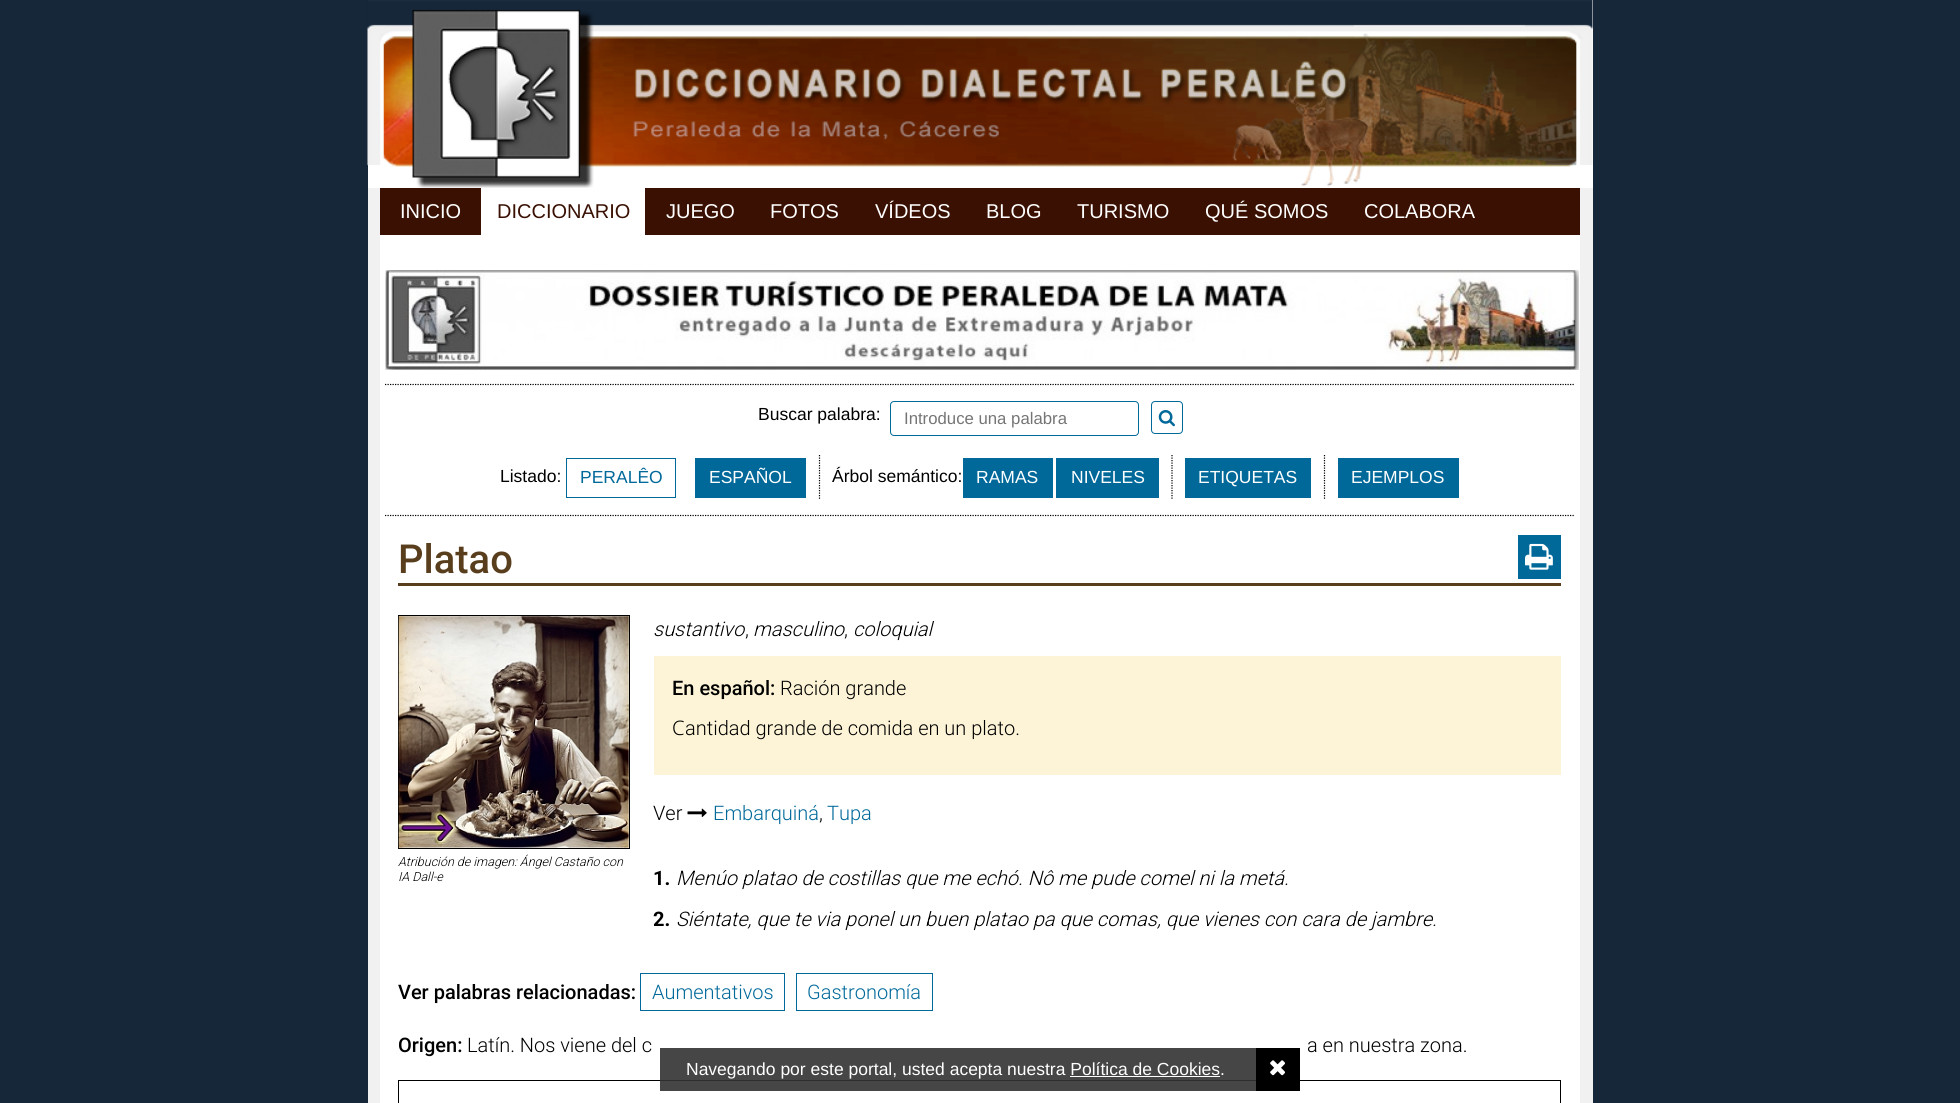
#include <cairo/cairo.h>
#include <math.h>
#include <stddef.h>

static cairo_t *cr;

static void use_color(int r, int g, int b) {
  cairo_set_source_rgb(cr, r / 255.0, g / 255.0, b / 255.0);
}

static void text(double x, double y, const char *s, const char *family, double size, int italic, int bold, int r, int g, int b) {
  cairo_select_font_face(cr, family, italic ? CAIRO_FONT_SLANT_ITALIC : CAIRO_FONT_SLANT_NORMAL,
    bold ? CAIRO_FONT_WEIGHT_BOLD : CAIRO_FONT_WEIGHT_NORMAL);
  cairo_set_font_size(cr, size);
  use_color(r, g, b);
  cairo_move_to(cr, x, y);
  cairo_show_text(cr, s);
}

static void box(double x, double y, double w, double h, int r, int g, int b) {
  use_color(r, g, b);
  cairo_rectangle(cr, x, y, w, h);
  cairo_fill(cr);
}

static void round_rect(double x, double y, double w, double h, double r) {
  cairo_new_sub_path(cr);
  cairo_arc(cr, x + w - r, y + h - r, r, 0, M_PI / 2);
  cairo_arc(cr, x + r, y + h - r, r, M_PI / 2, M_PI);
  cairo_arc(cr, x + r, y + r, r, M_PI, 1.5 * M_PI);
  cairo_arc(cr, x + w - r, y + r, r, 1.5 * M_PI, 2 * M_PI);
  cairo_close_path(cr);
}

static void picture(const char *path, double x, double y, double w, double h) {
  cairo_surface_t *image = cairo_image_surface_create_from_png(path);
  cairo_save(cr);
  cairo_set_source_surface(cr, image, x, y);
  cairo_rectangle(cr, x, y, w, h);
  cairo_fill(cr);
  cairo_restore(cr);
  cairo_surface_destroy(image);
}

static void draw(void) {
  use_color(22, 39, 57);
  cairo_paint(cr);
  box(368, 0, 1225, 188, 255, 255, 255);
  picture("img_01.png", 367, 0, 1226, 188);
  box(380, 188, 1200, 47, 57, 16, 2);
  box(1580, 188, 13, 47, 241, 241, 241);
  box(368, 188, 12, 47, 241, 241, 241);
  box(481, 188, 164, 47, 255, 255, 255);
  box(368, 235, 1225, 868, 241, 241, 241);
  box(380, 235, 1200, 868, 255, 255, 255);
  picture("img_02.png", 385, 270, 1194, 100);
  cairo_new_path(cr);
  cairo_move_to(cr, 385, 384.5);
  cairo_line_to(cr, 1574, 384.5);
  use_color(0, 0, 0);
  cairo_set_line_width(cr, 1.2);
  cairo_set_dash(cr, (double[]){1.25, 1.25}, 2, 0);
  cairo_stroke(cr);
  round_rect(890.5, 401.5, 248, 34, 3.5);
  use_color(0, 105, 154);
  cairo_set_line_width(cr, 1);
  cairo_set_dash(cr, NULL, 0, 0);
  cairo_stroke(cr);
  round_rect(1151.5, 401.5, 31, 32, 3.5);
  cairo_stroke(cr);
  picture("img_03.png", 1158, 410, 17, 17);
  cairo_rectangle(cr, 566.5, 458.5, 109, 39);
  cairo_stroke(cr);
  box(695, 458, 111, 40, 0, 105, 154);
  cairo_new_path(cr);
  cairo_move_to(cr, 819.5, 455);
  cairo_line_to(cr, 819.5, 499);
  use_color(0, 0, 0);
  cairo_set_line_width(cr, 1.2);
  cairo_set_dash(cr, (double[]){1.25, 1.25}, 2, 0);
  cairo_stroke(cr);
  box(963, 458, 90, 40, 0, 105, 154);
  box(1056, 458, 103, 40, 0, 105, 154);
  cairo_new_path(cr);
  cairo_move_to(cr, 1172, 455);
  cairo_line_to(cr, 1172, 499);
  use_color(0, 0, 0);
  cairo_stroke(cr);
  box(1185, 458, 126, 40, 0, 105, 154);
  cairo_new_path(cr);
  cairo_move_to(cr, 1324.5, 455);
  cairo_line_to(cr, 1324.5, 499);
  use_color(0, 0, 0);
  cairo_stroke(cr);
  box(1338, 458, 121, 40, 0, 105, 154);
  cairo_new_path(cr);
  cairo_move_to(cr, 385, 515.5);
  cairo_line_to(cr, 1574, 515.5);
  use_color(0, 0, 0);
  cairo_stroke(cr);
  box(398, 583, 1163, 3, 88, 62, 29);
  box(1518, 535, 43, 44, 0, 105, 154);
  picture("img_04.png", 1525, 543, 28, 27);
  cairo_rectangle(cr, 398.5, 615.5, 231, 233);
  use_color(0, 0, 0);
  cairo_set_line_width(cr, 1);
  cairo_set_dash(cr, NULL, 0, 0);
  cairo_stroke(cr);
  picture("img_05.png", 398, 616, 231, 232);
  box(654, 656, 907, 119, 253, 244, 215);
  picture("img_06.png", 687, 808, 20, 10);
  cairo_rectangle(cr, 640.5, 973.5, 144, 37);
  use_color(0, 105, 154);
  cairo_stroke(cr);
  cairo_rectangle(cr, 796.5, 973.5, 136, 37);
  cairo_stroke(cr);
  cairo_rectangle(cr, 398.5, 1080.5, 1162, 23);
  use_color(0, 0, 0);
  cairo_stroke(cr);
  cairo_set_source_rgba(cr, 0.196, 0.196, 0.196, 0.9);
  cairo_rectangle(cr, 660, 1048, 596, 43);
  cairo_fill(cr);
  box(1256, 1048, 44, 43, 0, 0, 0);
  picture("img_07.png", 1270, 1060, 15, 16);
  box(1070, 1076, 150, 1, 255, 255, 255);
  text(400, 218, "INICIO", "Liberation Sans", 20, 0, 0, 255, 255, 255);
  text(497, 218, "DICCIONARIO", "Liberation Sans", 20, 0, 0, 57, 16, 2);
  text(666, 218, "JUEGO", "Liberation Sans", 20, 0, 0, 255, 255, 255);
  text(770, 218, "FOTOS", "Liberation Sans", 20, 0, 0, 255, 255, 255);
  text(875, 218, "VÍDEOS", "Liberation Sans", 20, 0, 0, 255, 255, 255);
  text(986, 218, "BLOG", "Liberation Sans", 20, 0, 0, 255, 255, 255);
  text(1077, 218, "TURISMO", "Liberation Sans", 20, 0, 0, 255, 255, 255);
  text(1205, 218, "QUÉ SOMOS", "Liberation Sans", 20, 0, 0, 255, 255, 255);
  text(1364, 218, "COLABORA", "Liberation Sans", 20, 0, 0, 255, 255, 255);
  text(758, 420, "Buscar palabra:", "Liberation Sans", 17.5, 0, 0, 0, 0, 0);
  text(904, 424, "Introduce una palabra", "Liberation Sans", 16.75, 0, 0, 117, 117, 117);
  text(500, 482, "Listado:", "Liberation Sans", 17.5, 0, 0, 0, 0, 0);
  text(580, 483, "PERALÊO", "Liberation Sans", 17.5, 0, 0, 0, 105, 154);
  text(709, 483, "ESPAÑOL", "Liberation Sans", 17.5, 0, 0, 255, 255, 255);
  text(832, 482, "Árbol semántico:", "Liberation Sans", 17.5, 0, 0, 0, 0, 0);
  text(976, 483, "RAMAS", "Liberation Sans", 17.5, 0, 0, 255, 255, 255);
  text(1071, 483, "NIVELES", "Liberation Sans", 17.5, 0, 0, 255, 255, 255);
  text(1198, 483, "ETIQUETAS", "Liberation Sans", 17.5, 0, 0, 255, 255, 255);
  text(1351, 483, "EJEMPLOS", "Liberation Sans", 17.5, 0, 0, 255, 255, 255);
  text(398, 573, "Platao", "Roboto Medium", 40, 0, 0, 88, 62, 29);
  text(398, 866, "Atribución de imagen: Ángel Castaño con", "Roboto Light", 12.5, 1, 0, 0, 0, 0);
  text(398, 881, "IA Dall-e", "Roboto Light", 12.5, 1, 0, 0, 0, 0);
  text(653, 636, "sustantivo", "Roboto Light", 20, 1, 0, 0, 0, 0);
  text(745, 636, ",", "Roboto Light", 20, 0, 0, 0, 0, 0);
  text(753, 636, "masculino", "Roboto Light", 20, 1, 0, 0, 0, 0);
  text(844, 636, ",", "Roboto Light", 20, 0, 0, 0, 0, 0);
  text(853, 636, "coloquial", "Roboto Light", 20, 1, 0, 0, 0, 0);
  text(672, 695, "En español:", "Roboto Medium", 20, 0, 0, 0, 0, 0);
  text(780, 695, "Ración grande", "Roboto Light", 20, 0, 0, 0, 0, 0);
  text(672, 735, "C", "Noto Sans Light", 20, 0, 0, 0, 0, 0);
  text(685, 735, "antidad grande de comida en un plato.", "Roboto Light", 20, 0, 0, 0, 0, 0);
  text(653, 820, "Ver", "Roboto Light", 20, 0, 0, 0, 0, 0);
  text(713, 820, "Embarquiná", "Roboto Light", 20, 0, 0, 0, 105, 154);
  text(827, 820, "Tupa", "Roboto Light", 20, 0, 0, 0, 105, 154);
  text(819, 820, ",", "Roboto Light", 20, 0, 0, 0, 0, 0);
  text(653, 885, "1.", "Roboto", 20, 0, 1, 0, 0, 0);
  text(676, 885, "Menúo platao de costillas que me echó. Nô me pude comel ni la metá.", "Roboto Light", 20, 1, 0, 0, 0, 0);
  text(653, 926, "2.", "Roboto", 20, 0, 1, 0, 0, 0);
  text(676, 926, "Siéntate, que te via ponel un buen platao pa que comas, que vienes con cara de jambre.", "Roboto Light", 20, 1, 0, 0, 0, 0);
  text(398, 999, "Ver palabras relacionadas:", "Roboto Medium", 20, 0, 0, 0, 0, 0);
  text(652, 999, "Aumentativos", "Roboto Light", 20, 0, 0, 0, 105, 154);
  text(807, 999, "Gastronomía", "Roboto Light", 20, 0, 0, 0, 105, 154);
  text(398, 1052, "Origen:", "Roboto Medium", 20, 0, 0, 0, 0, 0);
  text(467, 1052, "Latín. Nos viene del c", "Roboto Light", 20, 0, 0, 0, 0, 0);
  text(1307, 1052, "a en nuestra zona.", "Roboto Light", 20, 0, 0, 0, 0, 0);
  text(686, 1075, "Navegando por este portal, usted acepta nuestra Política de Cookies.", "Liberation Sans", 17.5, 0, 0, 255, 255, 255);
}

int main(void) {
  cairo_surface_t *surface = cairo_image_surface_create(CAIRO_FORMAT_RGB24, 1960, 1103);
  cr = cairo_create(surface);
  cairo_font_options_t *options = cairo_font_options_create();
  cairo_font_options_set_hint_metrics(options, CAIRO_HINT_METRICS_OFF);
  cairo_font_options_set_hint_style(options, CAIRO_HINT_STYLE_NONE);
  cairo_set_font_options(cr, options);
  cairo_set_miter_limit(cr, 4);
  draw();
  cairo_surface_write_to_png(surface, "out.png");
  cairo_font_options_destroy(options);
  cairo_destroy(cr);
  cairo_surface_destroy(surface);
  return 0;
}
